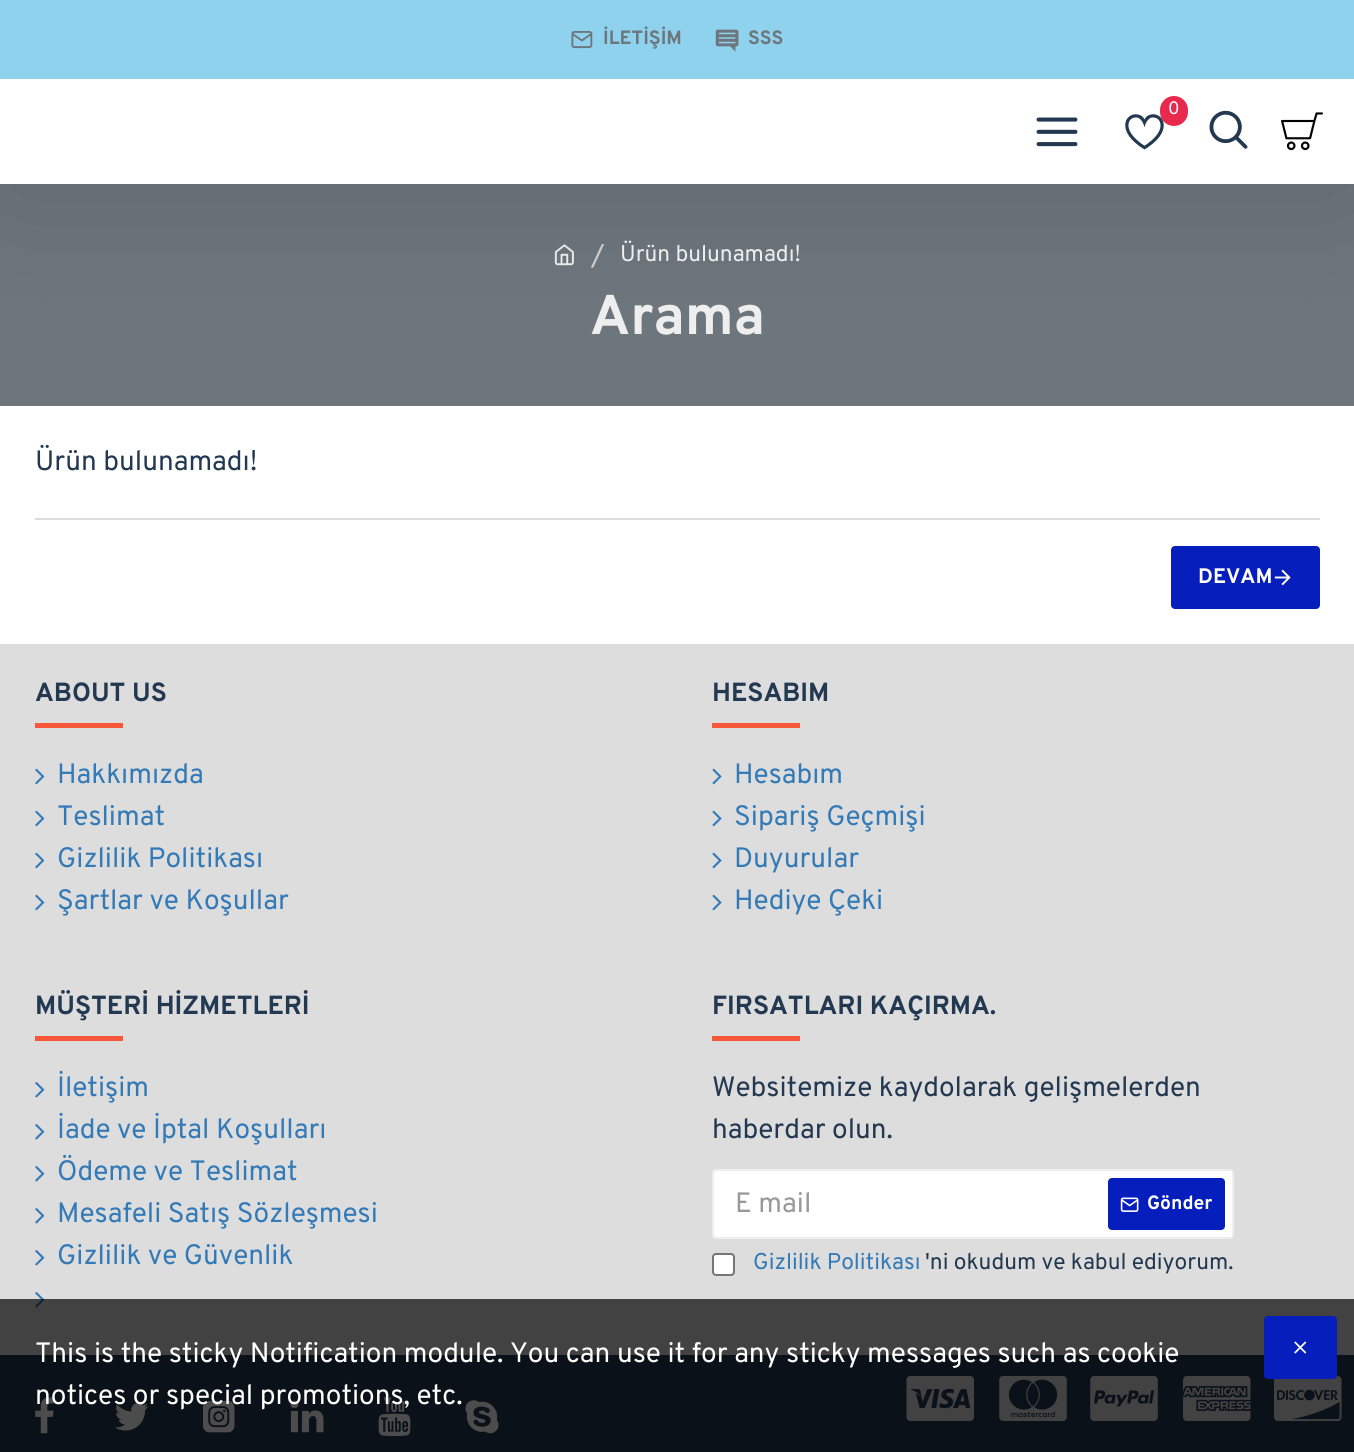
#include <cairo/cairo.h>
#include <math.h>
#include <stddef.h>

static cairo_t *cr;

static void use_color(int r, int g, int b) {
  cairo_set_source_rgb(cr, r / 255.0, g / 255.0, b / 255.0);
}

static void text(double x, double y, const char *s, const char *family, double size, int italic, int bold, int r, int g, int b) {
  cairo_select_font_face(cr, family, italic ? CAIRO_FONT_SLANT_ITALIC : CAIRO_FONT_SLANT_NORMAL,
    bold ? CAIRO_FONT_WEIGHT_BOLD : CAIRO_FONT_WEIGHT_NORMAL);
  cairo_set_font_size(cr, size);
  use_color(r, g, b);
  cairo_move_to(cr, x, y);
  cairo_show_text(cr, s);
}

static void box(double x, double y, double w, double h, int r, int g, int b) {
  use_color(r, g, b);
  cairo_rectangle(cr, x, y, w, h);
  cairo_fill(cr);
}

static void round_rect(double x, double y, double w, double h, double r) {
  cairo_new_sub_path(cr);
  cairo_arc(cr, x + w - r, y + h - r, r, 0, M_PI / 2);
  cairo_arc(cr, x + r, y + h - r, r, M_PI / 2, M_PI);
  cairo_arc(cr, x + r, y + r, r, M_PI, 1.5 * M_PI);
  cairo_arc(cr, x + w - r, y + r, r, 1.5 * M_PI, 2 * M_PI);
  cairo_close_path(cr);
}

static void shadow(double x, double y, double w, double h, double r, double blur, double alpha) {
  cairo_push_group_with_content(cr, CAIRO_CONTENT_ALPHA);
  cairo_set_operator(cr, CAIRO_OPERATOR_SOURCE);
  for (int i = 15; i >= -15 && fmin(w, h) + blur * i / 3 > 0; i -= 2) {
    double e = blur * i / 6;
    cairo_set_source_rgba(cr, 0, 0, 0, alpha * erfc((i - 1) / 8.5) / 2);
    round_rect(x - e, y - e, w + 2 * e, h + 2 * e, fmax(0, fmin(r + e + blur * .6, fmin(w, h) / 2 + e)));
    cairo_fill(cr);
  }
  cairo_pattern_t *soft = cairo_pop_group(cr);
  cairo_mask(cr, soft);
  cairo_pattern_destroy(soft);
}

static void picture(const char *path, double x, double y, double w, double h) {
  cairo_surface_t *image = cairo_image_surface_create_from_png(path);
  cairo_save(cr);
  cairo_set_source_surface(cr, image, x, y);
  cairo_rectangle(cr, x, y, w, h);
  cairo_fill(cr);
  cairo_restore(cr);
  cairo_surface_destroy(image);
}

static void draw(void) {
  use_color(255, 255, 255);
  cairo_paint(cr);
  box(0, 184, 1354, 222, 109, 118, 125);
  picture("img_07.png", 554, 244, 20, 22);
  use_color(0, 0, 0);
  shadow(18, 96, 1319, 70, 0, 74.5, 0.2);
  box(0, 0, 1354, 79, 143, 210, 238);
  picture("img_01.png", 571, 31, 22, 18);
  picture("img_02.png", 715, 29, 24, 23);
  box(0, 79, 1354, 105, 255, 255, 255);
  picture("img_03.png", 1125, 114, 39, 36);
  use_color(232, 40, 77);
  round_rect(1160, 96, 28, 30, 14);
  cairo_fill(cr);
  picture("img_04.png", 1036, 117, 42, 30);
  picture("img_05.png", 1209, 110, 39, 39);
  picture("img_06.png", 1281, 112, 42, 39);
  box(35, 518, 1285, 2, 221, 221, 221);
  use_color(6, 30, 187);
  round_rect(1171, 546, 149, 63, 4);
  cairo_fill(cr);
  picture("img_08.png", 1274, 569, 17, 17);
  box(0, 644, 1354, 711, 221, 221, 221);
  box(35, 723, 88, 5, 248, 86, 57);
  picture("img_09.png", 35, 768, 10, 17);
  picture("img_09.png", 35, 810, 10, 17);
  picture("img_09.png", 35, 852, 10, 17);
  picture("img_09.png", 35, 894, 10, 17);
  box(712, 723, 88, 5, 248, 86, 57);
  picture("img_10.png", 712, 768, 10, 17);
  picture("img_10.png", 712, 810, 10, 17);
  picture("img_10.png", 712, 852, 10, 17);
  picture("img_10.png", 712, 894, 10, 17);
  box(35, 1036, 88, 5, 248, 86, 57);
  picture("img_11.png", 35, 1082, 10, 16);
  picture("img_11.png", 35, 1124, 10, 16);
  picture("img_11.png", 35, 1166, 10, 16);
  picture("img_11.png", 35, 1208, 10, 16);
  picture("img_11.png", 35, 1250, 10, 16);
  picture("img_11.png", 35, 1292, 10, 16);
  box(712, 1036, 88, 5, 248, 86, 57);
  use_color(255, 255, 255);
  round_rect(713, 1170, 520, 68, 3);
  cairo_fill_preserve(cr);
  use_color(238, 238, 238);
  cairo_stroke(cr);
  use_color(6, 30, 187);
  round_rect(1108, 1178, 117, 52, 4);
  cairo_fill(cr);
  picture("img_12.png", 1120, 1197, 19, 15);
  use_color(255, 255, 255);
  round_rect(713, 1254, 21, 21, 3);
  cairo_fill_preserve(cr);
  use_color(118, 118, 118);
  cairo_stroke(cr);
  box(0, 1355, 1354, 97, 35, 56, 81);
  picture("img_13.png", 35, 1397, 19, 37);
  picture("img_14.png", 115, 1403, 34, 28);
  picture("img_15.png", 203, 1400, 32, 33);
  picture("img_16.png", 290, 1400, 34, 33);
  picture("img_17.png", 378, 1397, 33, 39);
  picture("img_18.png", 465, 1400, 34, 34);
  picture("img_19.png", 906, 1376, 69, 45);
  picture("img_20.png", 999, 1376, 68, 45);
  picture("img_21.png", 1090, 1376, 68, 45);
  picture("img_22.png", 1183, 1376, 68, 45);
  picture("img_23.png", 1274, 1376, 68, 45);
  cairo_set_source_rgba(cr, 0, 0, 0, 0.7);
  cairo_rectangle(cr, 0, 1299, 1354, 153);
  cairo_fill(cr);
  use_color(6, 30, 187);
  round_rect(1264, 1316, 73, 63, 4);
  cairo_fill(cr);
  picture("img_24.png", 1294, 1341, 13, 13);
  text(603, 44, "İLETİŞİM", "Overpass", 19.25, 0, 1, 109, 118, 125);
  text(748, 44, "SSS", "Overpass", 19.25, 0, 1, 109, 118, 125);
  text(1168, 114, "0", "Overpass", 18, 0, 0, 255, 255, 255);
  text(591, 264, "/", "Overpass", 28, 0, 0, 204, 204, 204);
  text(620, 261, "Ürün bulunamadı!", "Overpass", 22.75, 0, 0, 238, 238, 238);
  text(590, 334, "Arama", "Overpass", 56, 0, 1, 238, 238, 238);
  text(35, 470, "Ürün bulunamadı!", "Overpass", 28, 0, 0, 35, 56, 81);
  text(1198, 583, "DEVAM", "Overpass", 21, 0, 1, 255, 255, 255);
  text(35, 701, "ABOUT US", "Overpass", 26.25, 0, 1, 35, 56, 81);
  text(57, 783, "Hakkımızda", "Overpass", 28, 0, 0, 51, 122, 183);
  text(57, 825, "Teslimat", "Overpass", 28, 0, 0, 51, 122, 183);
  text(57, 867, "Gizlilik Politikası", "Overpass", 28, 0, 0, 51, 122, 183);
  text(57, 909, "Şartlar ve Koşullar", "Overpass", 28, 0, 0, 51, 122, 183);
  text(712, 701, "HESABIM", "Overpass", 26.25, 0, 1, 35, 56, 81);
  text(734, 783, "Hesabım", "Overpass", 28, 0, 0, 51, 122, 183);
  text(734, 825, "Sipariş Geçmişi", "Overpass", 28, 0, 0, 51, 122, 183);
  text(734, 867, "Duyurular", "Overpass", 28, 0, 0, 51, 122, 183);
  text(734, 909, "Hediye Çeki", "Overpass", 28, 0, 0, 51, 122, 183);
  text(35, 1014, "MÜŞTERİ HİZMETLERİ", "Overpass", 26.25, 0, 1, 35, 56, 81);
  text(57, 1096, "İletişim", "Overpass", 28, 0, 0, 51, 122, 183);
  text(57, 1138, "İade ve İptal Koşulları", "Overpass", 28, 0, 0, 51, 122, 183);
  text(57, 1180, "Ödeme ve Teslimat", "Overpass", 28, 0, 0, 51, 122, 183);
  text(57, 1222, "Mesafeli Satış Sözleşmesi", "Overpass", 28, 0, 0, 51, 122, 183);
  text(57, 1264, "Gizlilik ve Güvenlik", "Overpass", 28, 0, 0, 51, 122, 183);
  text(712, 1014, "FIRSATLARI KAÇIRMA.", "Overpass", 26.25, 0, 1, 35, 56, 81);
  text(712, 1096, "Websitemize kaydolarak gelişmelerden", "Overpass", 28, 0, 0, 35, 56, 81);
  text(712, 1138, "haberdar olun.", "Overpass", 28, 0, 0, 35, 56, 81);
  text(735, 1212, "E mail", "Overpass", 28, 0, 0, 153, 153, 153);
  text(1147, 1209, "Gönder", "Overpass", 19.25, 0, 1, 255, 255, 255);
  text(753, 1269, "Gizlilik Politikası", "Overpass", 22.75, 0, 0, 51, 122, 183);
  text(925, 1269, "'ni okudum ve kabul ediyorum.", "Overpass", 22.75, 0, 0, 35, 56, 81);
  text(35, 1362, "This is the sticky Notification module. You can use it for any sticky messages such as cookie", "Overpass", 28, 0, 0, 255, 255, 255);
  text(35, 1404, "notices or special promotions, etc.", "Overpass", 28, 0, 0, 255, 255, 255);
}

int main(void) {
  cairo_surface_t *surface = cairo_image_surface_create(CAIRO_FORMAT_RGB24, 1354, 1452);
  cr = cairo_create(surface);
  cairo_font_options_t *options = cairo_font_options_create();
  cairo_font_options_set_hint_metrics(options, CAIRO_HINT_METRICS_OFF);
  cairo_font_options_set_hint_style(options, CAIRO_HINT_STYLE_NONE);
  cairo_set_font_options(cr, options);
  cairo_set_miter_limit(cr, 4);
  draw();
  cairo_surface_write_to_png(surface, "out.png");
  cairo_font_options_destroy(options);
  cairo_destroy(cr);
  cairo_surface_destroy(surface);
  return 0;
}
